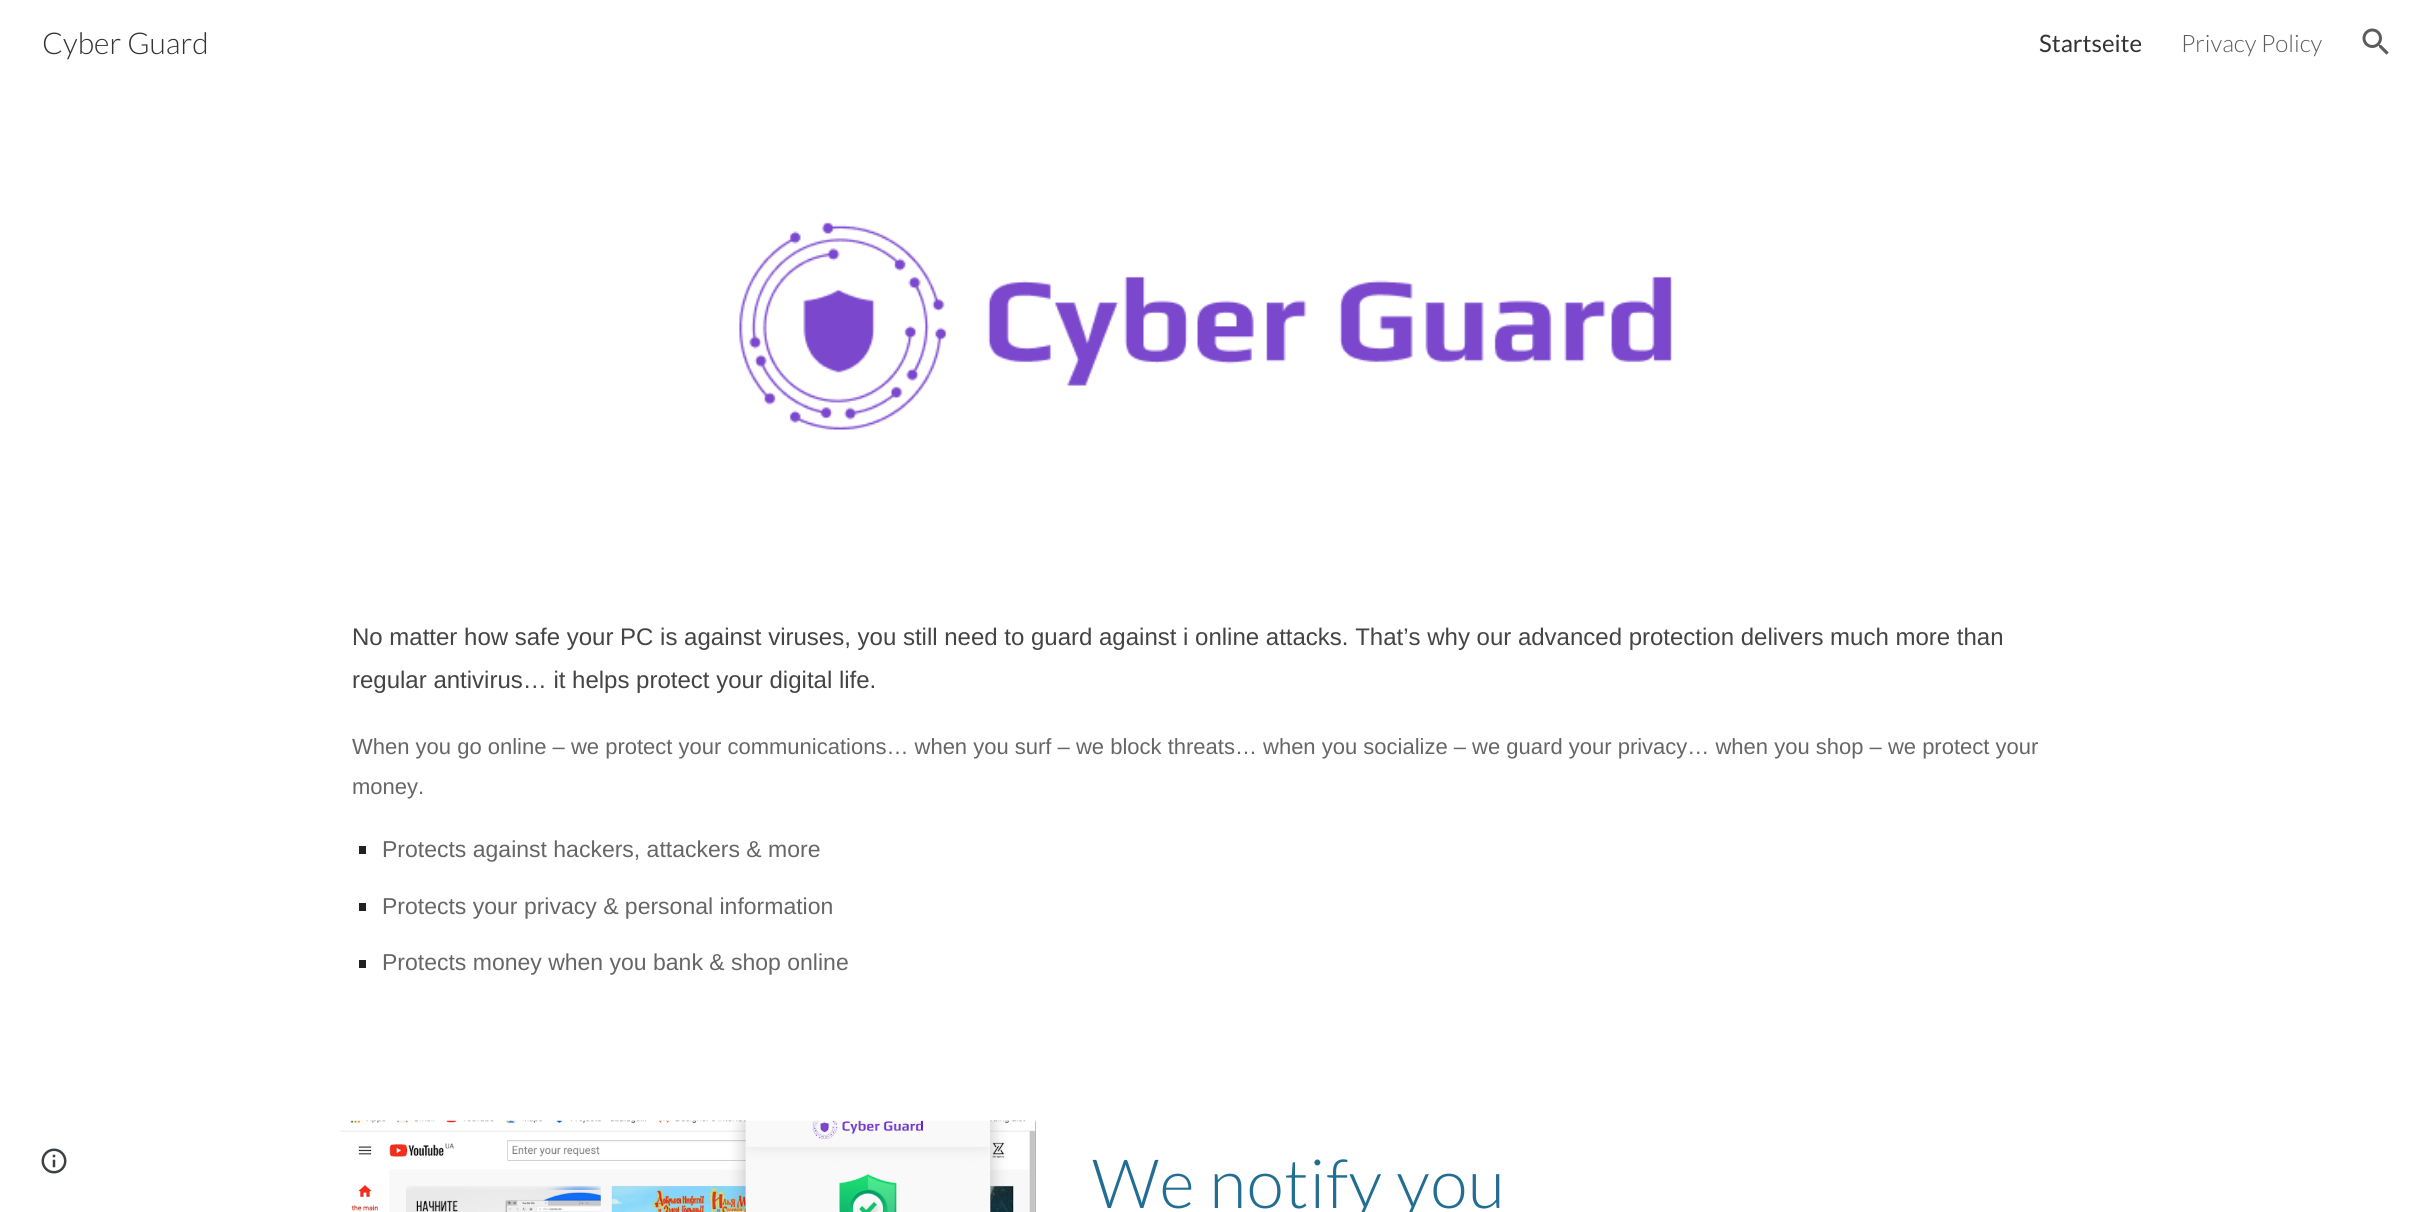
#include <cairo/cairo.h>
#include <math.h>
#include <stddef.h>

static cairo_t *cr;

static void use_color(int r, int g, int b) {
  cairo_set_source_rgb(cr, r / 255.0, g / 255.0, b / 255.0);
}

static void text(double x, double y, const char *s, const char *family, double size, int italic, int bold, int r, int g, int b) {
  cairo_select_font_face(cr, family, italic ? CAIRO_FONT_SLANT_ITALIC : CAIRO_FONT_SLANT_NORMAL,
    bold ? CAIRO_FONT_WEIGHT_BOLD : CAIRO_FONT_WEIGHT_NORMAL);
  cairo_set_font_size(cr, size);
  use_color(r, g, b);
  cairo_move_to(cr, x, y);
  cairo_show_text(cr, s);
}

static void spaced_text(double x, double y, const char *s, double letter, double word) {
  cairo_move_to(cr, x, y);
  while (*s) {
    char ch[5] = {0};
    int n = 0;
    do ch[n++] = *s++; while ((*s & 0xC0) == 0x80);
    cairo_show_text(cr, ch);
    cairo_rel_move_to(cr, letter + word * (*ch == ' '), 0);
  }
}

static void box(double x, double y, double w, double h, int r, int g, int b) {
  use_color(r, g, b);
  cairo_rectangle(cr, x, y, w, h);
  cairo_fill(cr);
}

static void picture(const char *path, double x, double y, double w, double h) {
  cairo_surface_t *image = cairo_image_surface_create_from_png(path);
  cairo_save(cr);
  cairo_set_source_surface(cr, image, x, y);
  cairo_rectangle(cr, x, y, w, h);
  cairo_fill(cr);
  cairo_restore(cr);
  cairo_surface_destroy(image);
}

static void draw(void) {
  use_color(255, 255, 255);
  cairo_paint(cr);
  picture("img_01.png", 2362, 28, 27, 27);
  picture("img_02.png", 41, 1148, 26, 26);
  picture("img_03.png", 739, 222, 933, 208);
  box(359, 846, 7, 8, 33, 33, 33);
  box(359, 903, 7, 8, 33, 33, 33);
  box(359, 960, 7, 8, 33, 33, 33);
  picture("img_04.png", 340, 1120, 696, 92);
  text(42, 54, "Cyber Guard", "Lato Light", 30, 0, 0, 51, 51, 51);
  text(2039, 52, "Startseite", "Lato", 24, 0, 0, 51, 51, 51);
  text(2181, 52, "Privacy Policy", "Lato Light", 24, 0, 0, 92, 92, 92);
  text(352, 645, "No matter how safe your PC is against viruses, you still need to guard against i online attacks. That’s why our advanced protection delivers much more than", "Liberation Sans", 24, 0, 0, 68, 68, 68);
  text(352, 688, "regular antivirus… it helps protect your digital life.", "Liberation Sans", 24, 0, 0, 68, 68, 68);
  text(352, 754, "When you go online – we protect your communications… when you surf – we block threats… when you socialize – we guard your privacy… when you shop – we protect your", "Liberation Sans", 22, 0, 0, 102, 102, 102);
  text(352, 794, "money.", "Liberation Sans", 22, 0, 0, 102, 102, 102);
  text(382, 857, "Protects against hackers, attackers & more", "Liberation Sans", 23, 0, 0, 102, 102, 102);
  text(382, 914, "Protects your privacy & personal information", "Liberation Sans", 23, 0, 0, 102, 102, 102);
  text(382, 970, "Protects money when you bank & shop online", "Liberation Sans", 23, 0, 0, 102, 102, 102);
  cairo_select_font_face(cr, "Lato Light", CAIRO_FONT_SLANT_NORMAL, CAIRO_FONT_WEIGHT_NORMAL);
  cairo_set_font_size(cr, 68);
  use_color(34, 110, 147);
  spaced_text(1092, 1208, "We notify you", 0.75, 0);
}

int main(void) {
  cairo_surface_t *surface = cairo_image_surface_create(CAIRO_FORMAT_RGB24, 2411, 1212);
  cr = cairo_create(surface);
  cairo_font_options_t *options = cairo_font_options_create();
  cairo_font_options_set_hint_metrics(options, CAIRO_HINT_METRICS_OFF);
  cairo_font_options_set_hint_style(options, CAIRO_HINT_STYLE_NONE);
  cairo_set_font_options(cr, options);
  cairo_set_miter_limit(cr, 4);
  draw();
  cairo_surface_write_to_png(surface, "out.png");
  cairo_font_options_destroy(options);
  cairo_destroy(cr);
  cairo_surface_destroy(surface);
  return 0;
}
